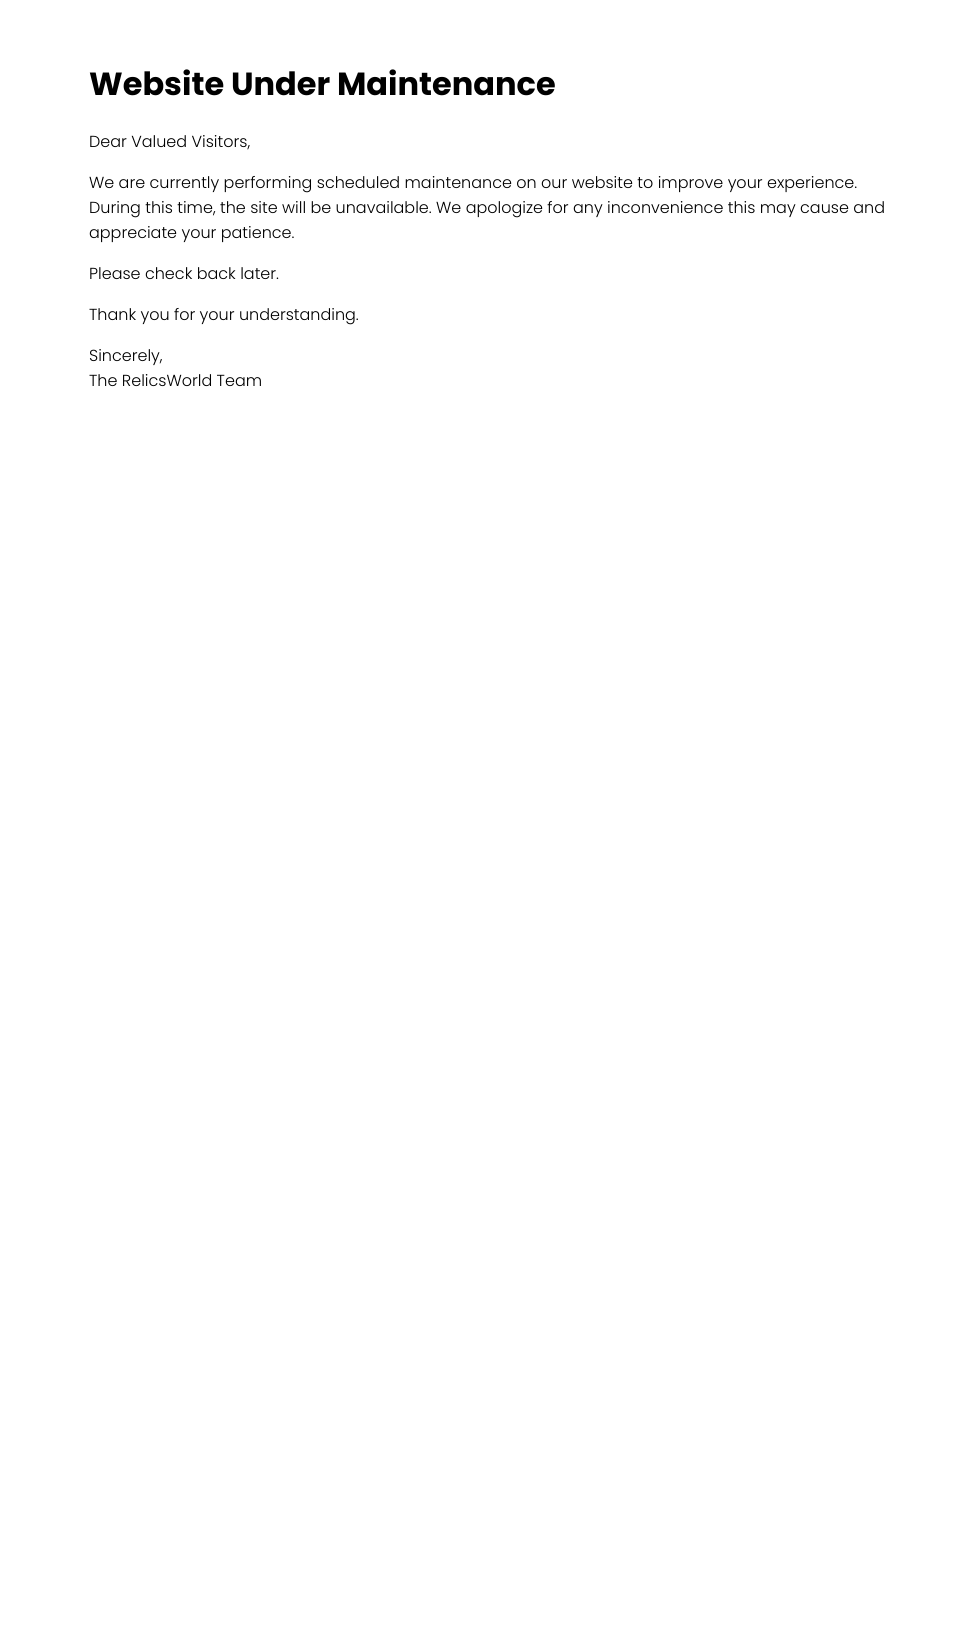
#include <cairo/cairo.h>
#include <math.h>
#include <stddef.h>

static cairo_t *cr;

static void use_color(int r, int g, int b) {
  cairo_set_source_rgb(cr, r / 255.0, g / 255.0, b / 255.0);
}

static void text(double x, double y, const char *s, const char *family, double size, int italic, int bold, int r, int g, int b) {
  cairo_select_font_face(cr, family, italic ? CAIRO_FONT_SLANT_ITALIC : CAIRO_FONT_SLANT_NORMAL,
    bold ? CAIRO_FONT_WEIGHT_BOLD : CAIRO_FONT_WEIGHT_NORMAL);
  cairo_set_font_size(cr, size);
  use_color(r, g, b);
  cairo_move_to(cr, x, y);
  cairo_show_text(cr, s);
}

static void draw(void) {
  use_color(255, 255, 255);
  cairo_paint(cr);
  text(89, 95, "Website Under Maintenance", "Poppins", 32, 0, 1, 0, 0, 0);
  text(89, 147, "Dear Valued Visitors,", "Poppins Light", 16, 0, 0, 0, 0, 0);
  text(89, 188, "We are currently performing scheduled maintenance on our website to improve your experience.", "Poppins Light", 16, 0, 0, 0, 0, 0);
  text(89, 213, "During this time, the site will be unavailable. We apologize for any inconvenience this may cause and", "Poppins Light", 16, 0, 0, 0, 0, 0);
  text(89, 238, "appreciate your patience.", "Poppins Light", 16, 0, 0, 0, 0, 0);
  text(89, 279, "Please check back later.", "Poppins Light", 16, 0, 0, 0, 0, 0);
  text(89, 320, "Thank you for your understanding.", "Poppins Light", 16, 0, 0, 0, 0, 0);
  text(89, 361, "Sincerely,", "Poppins Light", 16, 0, 0, 0, 0, 0);
  text(89, 386, "The RelicsWorld Team", "Poppins Light", 16, 0, 0, 0, 0, 0);
}

int main(void) {
  cairo_surface_t *surface = cairo_image_surface_create(CAIRO_FORMAT_RGB24, 978, 1644);
  cr = cairo_create(surface);
  cairo_font_options_t *options = cairo_font_options_create();
  cairo_font_options_set_hint_metrics(options, CAIRO_HINT_METRICS_OFF);
  cairo_font_options_set_hint_style(options, CAIRO_HINT_STYLE_NONE);
  cairo_set_font_options(cr, options);
  cairo_set_miter_limit(cr, 4);
  draw();
  cairo_surface_write_to_png(surface, "out.png");
  cairo_font_options_destroy(options);
  cairo_destroy(cr);
  cairo_surface_destroy(surface);
  return 0;
}
